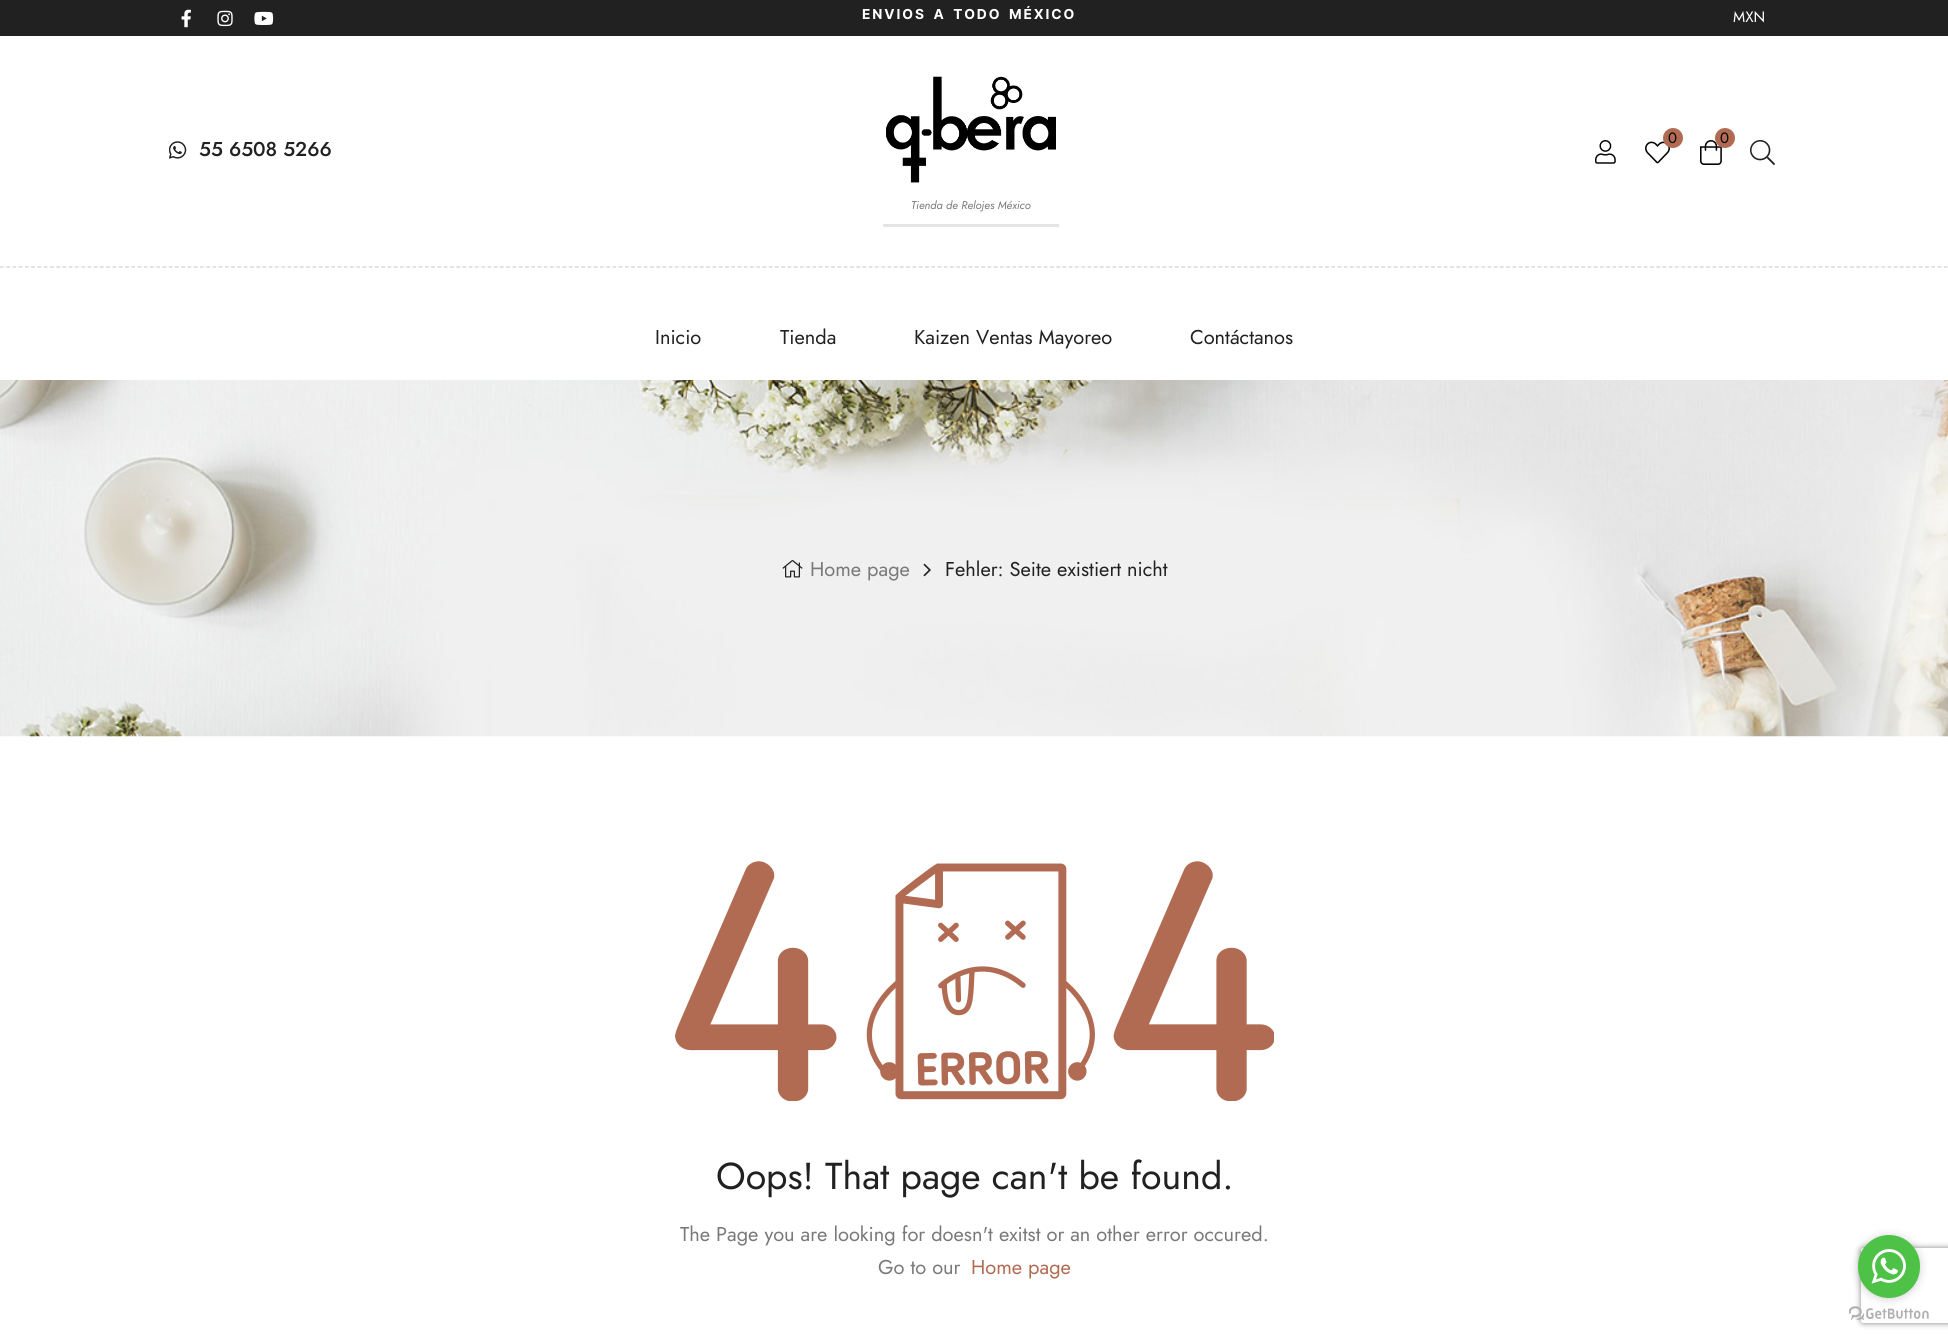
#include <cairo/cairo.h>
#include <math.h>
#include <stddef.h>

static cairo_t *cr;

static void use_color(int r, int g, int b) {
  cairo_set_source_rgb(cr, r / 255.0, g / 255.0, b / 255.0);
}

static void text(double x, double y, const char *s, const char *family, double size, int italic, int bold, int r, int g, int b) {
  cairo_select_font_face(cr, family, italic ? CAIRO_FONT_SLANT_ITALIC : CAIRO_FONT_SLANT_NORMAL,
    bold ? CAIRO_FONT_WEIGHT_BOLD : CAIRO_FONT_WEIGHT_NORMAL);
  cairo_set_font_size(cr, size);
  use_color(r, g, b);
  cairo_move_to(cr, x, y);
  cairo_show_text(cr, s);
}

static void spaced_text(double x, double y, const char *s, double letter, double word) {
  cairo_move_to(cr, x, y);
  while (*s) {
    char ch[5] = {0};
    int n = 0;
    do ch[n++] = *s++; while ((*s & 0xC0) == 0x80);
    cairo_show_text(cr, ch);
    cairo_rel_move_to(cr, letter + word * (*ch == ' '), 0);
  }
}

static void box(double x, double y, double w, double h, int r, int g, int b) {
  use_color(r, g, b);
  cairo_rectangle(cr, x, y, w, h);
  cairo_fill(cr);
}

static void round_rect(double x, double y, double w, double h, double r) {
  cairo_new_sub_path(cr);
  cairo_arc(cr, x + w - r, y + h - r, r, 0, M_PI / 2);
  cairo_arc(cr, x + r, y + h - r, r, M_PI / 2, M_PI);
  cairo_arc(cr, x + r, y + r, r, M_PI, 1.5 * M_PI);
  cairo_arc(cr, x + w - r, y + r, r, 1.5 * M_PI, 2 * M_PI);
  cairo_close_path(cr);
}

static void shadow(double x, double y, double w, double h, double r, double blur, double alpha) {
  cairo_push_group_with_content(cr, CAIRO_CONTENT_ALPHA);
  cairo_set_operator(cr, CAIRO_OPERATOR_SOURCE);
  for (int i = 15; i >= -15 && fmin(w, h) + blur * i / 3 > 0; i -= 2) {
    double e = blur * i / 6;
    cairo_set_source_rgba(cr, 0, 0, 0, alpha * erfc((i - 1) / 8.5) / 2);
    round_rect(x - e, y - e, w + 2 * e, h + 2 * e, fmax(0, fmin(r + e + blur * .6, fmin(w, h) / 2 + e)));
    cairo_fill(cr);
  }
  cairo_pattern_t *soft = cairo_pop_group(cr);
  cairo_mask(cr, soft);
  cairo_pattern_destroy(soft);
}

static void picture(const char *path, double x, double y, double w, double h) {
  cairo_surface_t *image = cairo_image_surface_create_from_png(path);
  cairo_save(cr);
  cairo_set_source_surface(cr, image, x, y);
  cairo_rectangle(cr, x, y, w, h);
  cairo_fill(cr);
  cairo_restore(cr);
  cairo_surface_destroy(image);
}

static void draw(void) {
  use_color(255, 255, 255);
  cairo_paint(cr);
  box(0, 0, 1948, 36, 33, 33, 33);
  picture("img_01.png", 181, 9, 10, 19);
  picture("img_02.png", 217, 10, 16, 17);
  picture("img_03.png", 254, 11, 20, 14);
  picture("img_04.png", 1645, 141, 25, 23);
  use_color(178, 107, 83);
  cairo_arc(cr, 1673, 138, 10, 0, 2 * M_PI);
  cairo_fill(cr);
  picture("img_05.png", 1700, 140, 22, 25);
  cairo_arc(cr, 1725, 138, 10, 0, 2 * M_PI);
  cairo_fill(cr);
  picture("img_06.png", 1595, 140, 21, 24);
  picture("img_07.png", 1750, 140, 25, 25);
  picture("img_08.png", 169, 141, 18, 18);
  picture("img_09.png", 886, 76, 170, 107);
  box(883, 224, 176, 3, 228, 228, 228);
  cairo_new_path(cr);
  cairo_move_to(cr, 0, 267);
  cairo_line_to(cr, 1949, 267);
  use_color(209, 209, 209);
  cairo_set_line_width(cr, 1.2);
  cairo_set_dash(cr, (double[]){3.75, 2.5}, 2, 0);
  cairo_stroke(cr);
  picture("img_10.png", 0, 380, 1948, 357);
  picture("img_11.png", 782, 560, 21, 18);
  picture("img_12.png", 923, 563, 8, 14);
  picture("img_13.png", 675, 861, 599, 240);
  cairo_save(cr);
  cairo_set_fill_rule(cr, CAIRO_FILL_RULE_EVEN_ODD);
  cairo_new_path(cr);
  cairo_move_to(cr, 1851, 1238);
  cairo_line_to(cr, 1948, 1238);
  cairo_line_to(cr, 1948, 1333);
  cairo_line_to(cr, 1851, 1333);
  cairo_close_path(cr);
  cairo_move_to(cr, 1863.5, 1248);
  cairo_line_to(cr, 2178.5, 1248);
  cairo_curve_to(cr, 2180, 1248, 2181, 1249, 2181, 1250.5);
  cairo_line_to(cr, 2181, 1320.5);
  cairo_curve_to(cr, 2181, 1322, 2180, 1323, 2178.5, 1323);
  cairo_line_to(cr, 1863.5, 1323);
  cairo_curve_to(cr, 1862, 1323, 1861, 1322, 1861, 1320.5);
  cairo_line_to(cr, 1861, 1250.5);
  cairo_curve_to(cr, 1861, 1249, 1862, 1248, 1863.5, 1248);
  cairo_close_path(cr);
  cairo_clip(cr);
  use_color(128, 128, 128);
  shadow(1861, 1248, 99, 75, 2.5, 3, 1);
  cairo_restore(cr);
  picture("img_15.png", 1849, 1306, 80, 14);
  use_color(136, 136, 136);
  shadow(1858, 1236, 62, 63, 31, 4.5, 0.4);
  use_color(77, 194, 71);
  round_rect(1858, 1235, 62, 63, 31);
  cairo_fill(cr);
  picture("img_14.png", 1871, 1249, 35, 35);
  cairo_select_font_face(cr, "Konkhmer Sleokchher", CAIRO_FONT_SLANT_NORMAL, CAIRO_FONT_WEIGHT_NORMAL);
  cairo_set_font_size(cr, 13.75);
  use_color(255, 255, 255);
  spaced_text(862, 19, "ENVIOS A TODO MÉXICO", 1.9, 2.5);
  text(1733, 22, "MXN", "Jost", 15, 0, 0, 255, 255, 255);
  text(1668, 143, "0", "Jost", 15, 0, 0, 4, 4, 2);
  text(1720, 143, "0", "Jost", 15, 0, 0, 4, 4, 2);
  text(199, 156, "55 6508 5266", "Jost Medium", 20, 0, 0, 33, 33, 33);
  text(911, 209, "Tienda de Relojes México", "Jost", 11.25, 1, 0, 121, 121, 121);
  text(655, 344, "Inicio", "Jost", 20, 0, 0, 33, 33, 33);
  text(780, 344, "Tienda", "Jost", 20, 0, 0, 33, 33, 33);
  text(914, 344, "Kaizen Ventas Mayoreo", "Jost", 20, 0, 0, 33, 33, 33);
  text(1190, 344, "Contáctanos", "Jost", 20, 0, 0, 33, 33, 33);
  text(810, 576, "Home page", "Jost", 20, 0, 0, 121, 121, 121);
  text(945, 576, "Fehler: Seite existiert nicht", "Jost", 20, 0, 0, 33, 33, 33);
  text(716, 1189, "Oops! That page can't be found.", "Jost", 37.5, 0, 0, 33, 33, 33);
  text(680, 1241, "The Page you are looking for doesn't exitst or an other error occured.", "Jost", 20, 0, 0, 121, 121, 121);
  text(878, 1274, "Go to our", "Jost", 20, 0, 0, 121, 121, 121);
  text(971, 1274, "Home page", "Jost", 20, 0, 0, 178, 107, 83);
}

int main(void) {
  cairo_surface_t *surface = cairo_image_surface_create(CAIRO_FORMAT_RGB24, 1948, 1340);
  cr = cairo_create(surface);
  cairo_font_options_t *options = cairo_font_options_create();
  cairo_font_options_set_hint_metrics(options, CAIRO_HINT_METRICS_OFF);
  cairo_font_options_set_hint_style(options, CAIRO_HINT_STYLE_NONE);
  cairo_set_font_options(cr, options);
  cairo_set_miter_limit(cr, 4);
  draw();
  cairo_surface_write_to_png(surface, "out.png");
  cairo_font_options_destroy(options);
  cairo_destroy(cr);
  cairo_surface_destroy(surface);
  return 0;
}
